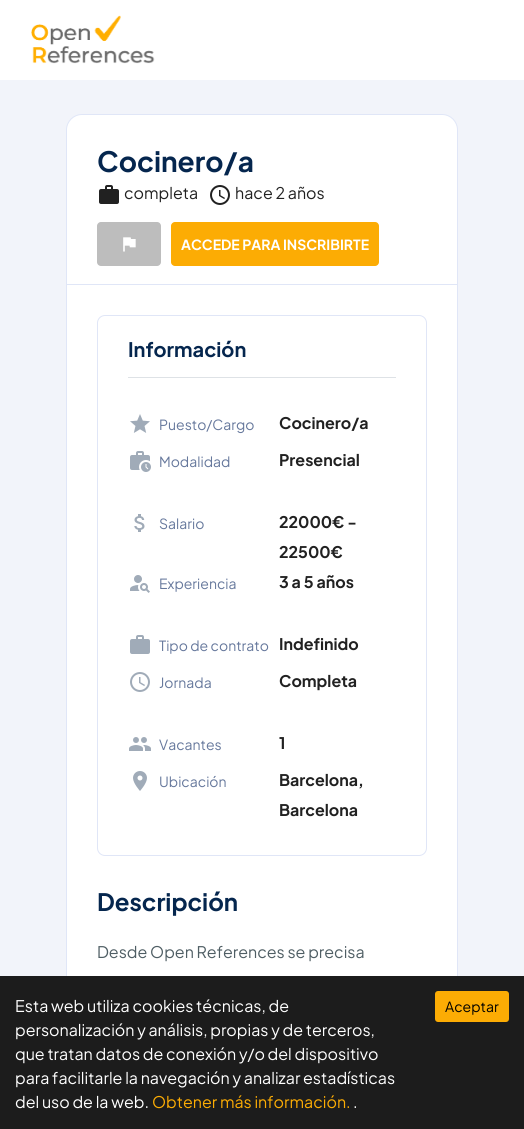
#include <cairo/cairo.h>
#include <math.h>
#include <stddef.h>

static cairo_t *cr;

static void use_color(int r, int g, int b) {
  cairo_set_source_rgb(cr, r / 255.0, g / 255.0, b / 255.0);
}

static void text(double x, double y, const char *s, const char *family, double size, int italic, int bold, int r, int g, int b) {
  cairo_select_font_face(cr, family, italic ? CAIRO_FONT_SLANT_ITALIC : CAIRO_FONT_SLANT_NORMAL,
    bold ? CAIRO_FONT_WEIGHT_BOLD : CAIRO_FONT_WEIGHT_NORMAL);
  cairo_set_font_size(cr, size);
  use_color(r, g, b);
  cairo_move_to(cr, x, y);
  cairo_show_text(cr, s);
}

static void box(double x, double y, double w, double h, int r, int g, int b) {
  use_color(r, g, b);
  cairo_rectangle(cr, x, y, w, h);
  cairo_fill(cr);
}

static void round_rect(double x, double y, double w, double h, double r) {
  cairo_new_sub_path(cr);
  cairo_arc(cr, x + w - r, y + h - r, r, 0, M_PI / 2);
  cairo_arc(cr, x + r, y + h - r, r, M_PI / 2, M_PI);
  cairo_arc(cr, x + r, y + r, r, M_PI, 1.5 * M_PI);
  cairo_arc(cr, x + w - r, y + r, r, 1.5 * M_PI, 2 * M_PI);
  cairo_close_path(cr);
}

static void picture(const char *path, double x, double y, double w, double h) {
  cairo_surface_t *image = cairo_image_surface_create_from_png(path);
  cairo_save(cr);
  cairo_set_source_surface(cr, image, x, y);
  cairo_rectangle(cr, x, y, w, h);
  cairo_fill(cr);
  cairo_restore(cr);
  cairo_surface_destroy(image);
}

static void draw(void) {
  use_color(242, 244, 250);
  cairo_paint(cr);
  box(0, 0, 524, 80, 255, 255, 255);
  picture("img_01.png", 31, 15, 124, 49);
  round_rect(66.5, 114.5, 391, 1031, 15.5);
  cairo_fill_preserve(cr);
  use_color(224, 230, 247);
  cairo_set_line_width(cr, 1);
  cairo_stroke(cr);
  box(67, 284, 390, 1, 224, 230, 247);
  picture("img_02.png", 99, 185, 20, 19);
  picture("img_03.png", 210, 185, 20, 20);
  use_color(189, 189, 189);
  round_rect(97, 222, 64, 44, 4);
  cairo_fill(cr);
  picture("img_04.png", 123, 237, 13, 15);
  use_color(252, 172, 4);
  round_rect(171, 222, 208, 44, 4);
  cairo_fill(cr);
  round_rect(97.5, 315.5, 329, 540, 7.5);
  use_color(224, 230, 247);
  cairo_stroke(cr);
  box(128, 377, 268, 1, 222, 226, 230);
  picture("img_05.png", 130, 414, 20, 19);
  picture("img_06.png", 130, 451, 21, 21);
  picture("img_07.png", 134, 514, 11, 18);
  picture("img_08.png", 130, 575, 20, 18);
  picture("img_09.png", 130, 635, 20, 19);
  picture("img_10.png", 130, 672, 20, 20);
  picture("img_11.png", 129, 737, 22, 14);
  picture("img_12.png", 133, 771, 14, 20);
  box(0, 976, 524, 153, 28, 28, 28);
  use_color(252, 172, 4);
  round_rect(435, 991, 74, 31, 3);
  cairo_fill(cr);
  text(97, 172, "Cocinero/a", "Plus Jakarta Sans", 28, 0, 1, 5, 38, 78);
  text(124, 199, "completa", "Plus Jakarta Sans", 16, 0, 0, 33, 33, 33);
  text(235, 199, "hace 2 años", "Plus Jakarta Sans", 16, 0, 0, 33, 33, 33);
  text(181, 250, "ACCEDE PARA INSCRIBIRTE", "Plus Jakarta Sans", 14, 0, 1, 255, 255, 255);
  text(128, 357, "Información", "Plus Jakarta Sans", 20, 0, 1, 5, 38, 78);
  text(159, 430, "Puesto/Cargo", "Plus Jakarta Sans", 14, 0, 0, 102, 120, 156);
  text(279, 429, "Cocinero/a", "Plus Jakarta Sans", 16, 0, 1, 33, 33, 33);
  text(159, 467, "Modalidad", "Plus Jakarta Sans", 14, 0, 0, 102, 120, 156);
  text(279, 466, "Presencial", "Plus Jakarta Sans", 16, 0, 1, 33, 33, 33);
  text(159, 529, "Salario", "Plus Jakarta Sans", 14, 0, 0, 102, 120, 156);
  text(279, 528, "22000€ -", "Plus Jakarta Sans", 16, 0, 1, 33, 33, 33);
  text(279, 558, "22500€", "Plus Jakarta Sans", 16, 0, 1, 33, 33, 33);
  text(159, 589, "Experiencia", "Plus Jakarta Sans", 14, 0, 0, 102, 120, 156);
  text(279, 588, "3 a 5 años", "Plus Jakarta Sans", 16, 0, 1, 33, 33, 33);
  text(159, 651, "Tipo de contrato", "Plus Jakarta Sans", 14, 0, 0, 102, 120, 156);
  text(279, 650, "Indefinido", "Plus Jakarta Sans", 16, 0, 1, 33, 33, 33);
  text(159, 688, "Jornada", "Plus Jakarta Sans", 14, 0, 0, 102, 120, 156);
  text(279, 687, "Completa", "Plus Jakarta Sans", 16, 0, 1, 33, 33, 33);
  text(159, 750, "Vacantes", "Plus Jakarta Sans", 14, 0, 0, 102, 120, 156);
  text(279, 749, "1", "Plus Jakarta Sans", 16, 0, 1, 33, 33, 33);
  text(159, 787, "Ubicación", "Plus Jakarta Sans", 14, 0, 0, 102, 120, 156);
  text(279, 786, "Barcelona,", "Plus Jakarta Sans", 16, 0, 1, 33, 33, 33);
  text(279, 816, "Barcelona", "Plus Jakarta Sans", 16, 0, 1, 33, 33, 33);
  text(97, 911, "Descripción", "Plus Jakarta Sans", 24, 0, 1, 5, 38, 78);
  text(97, 958, "Desde Open References se precisa", "Plus Jakarta Sans", 16, 0, 0, 79, 94, 100);
  text(15, 1012, "Esta web utiliza cookies técnicas, de", "Plus Jakarta Sans", 16, 0, 0, 255, 255, 255);
  text(15, 1036, "personalización y análisis, propias y de terceros,", "Plus Jakarta Sans", 16, 0, 0, 255, 255, 255);
  text(15, 1060, "que tratan datos de conexión y/o del dispositivo", "Plus Jakarta Sans", 16, 0, 0, 255, 255, 255);
  text(15, 1084, "para facilitarle la navegación y analizar estadísticas", "Plus Jakarta Sans", 16, 0, 0, 255, 255, 255);
  text(15, 1108, "del uso de la web.", "Plus Jakarta Sans", 16, 0, 0, 255, 255, 255);
  text(152, 1108, "Obtener más información.", "Plus Jakarta Sans", 16, 0, 0, 252, 172, 4);
  text(353, 1108, ".", "Plus Jakarta Sans", 16, 0, 0, 255, 255, 255);
  text(445, 1012, "Aceptar", "Plus Jakarta Sans", 14, 0, 0, 0, 0, 0);
}

int main(void) {
  cairo_surface_t *surface = cairo_image_surface_create(CAIRO_FORMAT_RGB24, 524, 1129);
  cr = cairo_create(surface);
  cairo_font_options_t *options = cairo_font_options_create();
  cairo_font_options_set_hint_metrics(options, CAIRO_HINT_METRICS_OFF);
  cairo_font_options_set_hint_style(options, CAIRO_HINT_STYLE_NONE);
  cairo_set_font_options(cr, options);
  cairo_set_miter_limit(cr, 4);
  draw();
  cairo_surface_write_to_png(surface, "out.png");
  cairo_font_options_destroy(options);
  cairo_destroy(cr);
  cairo_surface_destroy(surface);
  return 0;
}
